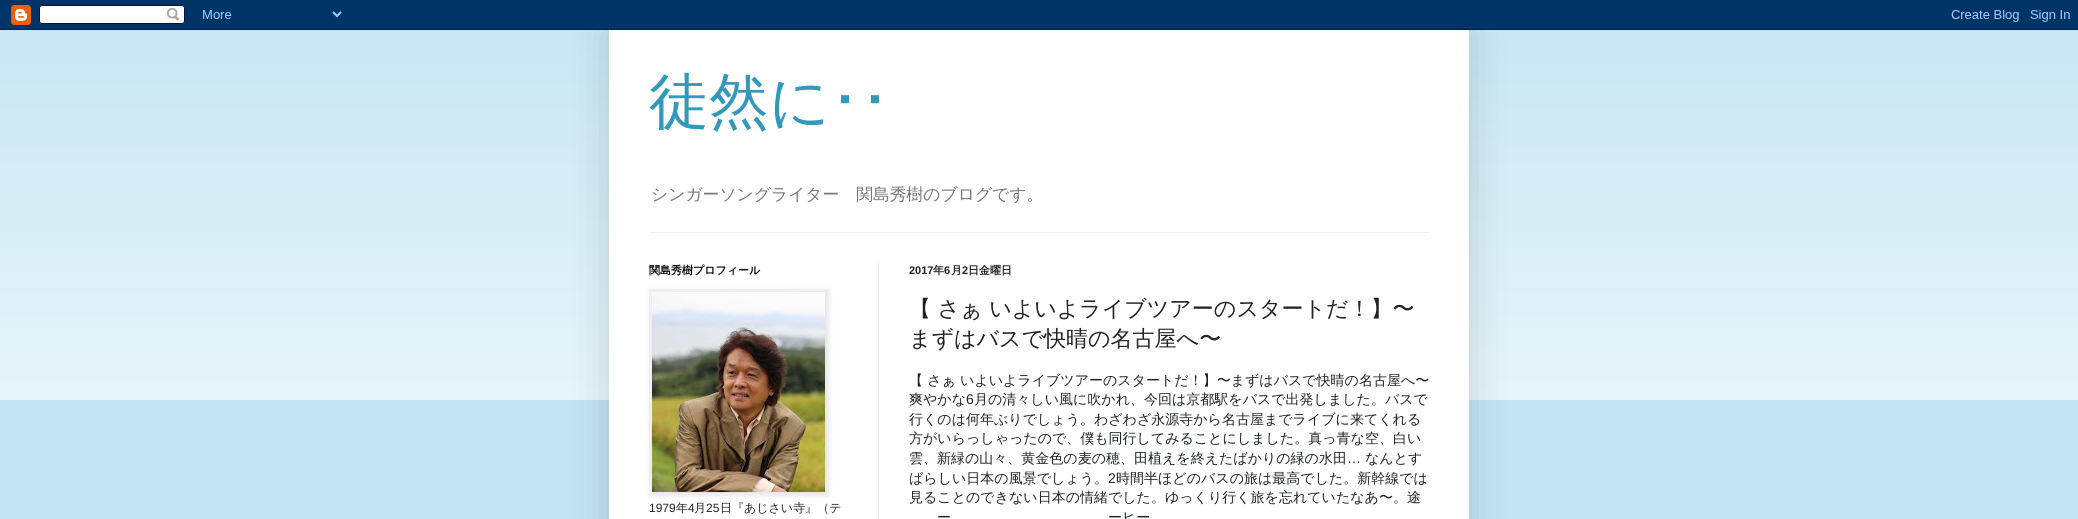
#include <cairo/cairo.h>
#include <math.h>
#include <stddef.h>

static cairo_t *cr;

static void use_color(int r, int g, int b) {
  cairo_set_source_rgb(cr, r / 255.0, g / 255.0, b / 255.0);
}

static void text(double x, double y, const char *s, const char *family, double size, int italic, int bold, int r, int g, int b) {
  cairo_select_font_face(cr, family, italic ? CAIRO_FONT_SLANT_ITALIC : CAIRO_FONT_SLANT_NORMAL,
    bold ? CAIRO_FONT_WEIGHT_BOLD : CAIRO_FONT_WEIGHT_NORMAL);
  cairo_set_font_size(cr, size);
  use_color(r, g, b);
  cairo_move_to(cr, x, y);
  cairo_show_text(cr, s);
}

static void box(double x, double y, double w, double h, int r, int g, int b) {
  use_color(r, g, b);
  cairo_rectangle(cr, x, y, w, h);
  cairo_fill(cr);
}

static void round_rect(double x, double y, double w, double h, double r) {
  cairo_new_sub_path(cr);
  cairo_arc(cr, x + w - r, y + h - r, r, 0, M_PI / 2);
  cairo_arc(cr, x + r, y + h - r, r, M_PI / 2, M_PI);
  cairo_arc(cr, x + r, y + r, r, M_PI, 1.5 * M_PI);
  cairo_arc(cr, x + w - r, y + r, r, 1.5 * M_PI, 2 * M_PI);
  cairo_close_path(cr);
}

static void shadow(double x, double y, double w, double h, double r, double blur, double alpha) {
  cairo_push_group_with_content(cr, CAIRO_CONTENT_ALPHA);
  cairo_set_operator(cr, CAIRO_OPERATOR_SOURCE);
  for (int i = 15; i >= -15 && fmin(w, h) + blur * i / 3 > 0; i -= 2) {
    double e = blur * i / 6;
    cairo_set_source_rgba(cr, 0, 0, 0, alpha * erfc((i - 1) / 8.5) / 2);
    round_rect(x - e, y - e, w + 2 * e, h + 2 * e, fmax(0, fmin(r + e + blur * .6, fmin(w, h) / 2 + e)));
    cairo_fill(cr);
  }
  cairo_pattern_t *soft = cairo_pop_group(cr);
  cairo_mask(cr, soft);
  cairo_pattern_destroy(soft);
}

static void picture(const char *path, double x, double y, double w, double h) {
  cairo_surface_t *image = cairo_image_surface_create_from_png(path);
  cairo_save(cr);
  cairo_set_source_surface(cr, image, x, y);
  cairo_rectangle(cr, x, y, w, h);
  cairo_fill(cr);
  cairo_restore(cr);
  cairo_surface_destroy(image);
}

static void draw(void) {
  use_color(194, 228, 242);
  cairo_paint(cr);
  picture("img_02.png", 0, 30, 2078, 370);
  use_color(0, 0, 0);
  shadow(609, 30, 860, 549, 0, 20, 0.15);
  picture("img_01.png", 0, 0, 2078, 30);
  box(609, 30, 860, 489, 255, 255, 255);
  box(649, 232, 780, 1, 238, 238, 238);
  box(878, 263, 1, 256, 238, 238, 238);
  use_color(0, 0, 0);
  shadow(650, 290, 179, 206, 0, 2.5, 0.1);
  cairo_rectangle(cr, 649.5, 289.5, 178, 205);
  use_color(238, 238, 238);
  cairo_set_line_width(cr, 1);
  cairo_stroke(cr);
  picture("img_03.png", 652, 292, 173, 200);
  text(649, 122, "徒然に", "WenQuanYi Zen Hei Medium", 60, 0, 0, 51, 153, 187);
  text(830, 122, "･･", "IPAPGothic", 60, 0, 0, 51, 153, 187);
  text(651, 200, "シンガーソングライター　関島秀樹のブログです。", "WenQuanYi Zen Hei Medium", 16.8, 0, 0, 119, 119, 119);
  text(649, 274, "関島秀樹プロフィール", "WenQuanYi Zen Hei", 11, 0, 1, 0, 0, 0);
  text(649, 512, "1979", "Liberation Sans", 12, 0, 0, 34, 34, 34);
  text(676, 512, "年", "WenQuanYi Zen Hei Medium", 12, 0, 0, 34, 34, 34);
  text(688, 512, "4", "Liberation Sans", 12, 0, 0, 34, 34, 34);
  text(694, 512, "月", "WenQuanYi Zen Hei Medium", 12, 0, 0, 34, 34, 34);
  text(706, 512, "25", "Liberation Sans", 12, 0, 0, 34, 34, 34);
  text(720, 512, "日『あじさい寺』（テ", "WenQuanYi Zen Hei Medium", 12, 0, 0, 34, 34, 34);
  text(909, 274, "2017", "Liberation Sans", 11, 0, 1, 34, 34, 34);
  text(933, 274, "年", "WenQuanYi Zen Hei", 11, 0, 1, 34, 34, 34);
  text(944, 274, "6", "Liberation Sans", 11, 0, 1, 34, 34, 34);
  text(951, 274, "月", "WenQuanYi Zen Hei", 11, 0, 1, 34, 34, 34);
  text(962, 274, "2", "Liberation Sans", 11, 0, 1, 34, 34, 34);
  text(968, 274, "日金曜日", "WenQuanYi Zen Hei", 11, 0, 1, 34, 34, 34);
  text(909, 316, "【 さぁ いよいよライブツアーのスタートだ！】〜", "WenQuanYi Zen Hei Medium", 22, 0, 0, 34, 34, 34);
  text(909, 346, "まずはバスで快晴の名古屋へ〜", "WenQuanYi Zen Hei Medium", 22, 0, 0, 34, 34, 34);
  text(909, 385, "【 さぁ いよいよライブツアーのスタートだ！】〜まずはバスで快晴の名古屋へ〜", "WenQuanYi Zen Hei Medium", 14, 0, 0, 29, 33, 41);
  text(909, 404, "爽やかな", "WenQuanYi Zen Hei Medium", 14, 0, 0, 29, 33, 41);
  text(966, 404, "6", "Liberation Sans", 14, 0, 0, 29, 33, 41);
  text(974, 404, "月の清々しい風に吹かれ、今回は京都駅をバスで出発しました。バスで", "WenQuanYi Zen Hei Medium", 14, 0, 0, 29, 33, 41);
  text(909, 424, "行くのは何年ぶりでしょう。わざわざ永源寺から名古屋までライブに来てくれる", "WenQuanYi Zen Hei Medium", 14, 0, 0, 29, 33, 41);
  text(909, 443, "方がいらっしゃったので、僕も同行してみることにしました。真っ青な空、白い", "WenQuanYi Zen Hei Medium", 14, 0, 0, 29, 33, 41);
  text(909, 463, "雲、新緑の山々、黄金色の麦の穂、田植えを終えたばかりの緑の水田", "WenQuanYi Zen Hei Medium", 14, 0, 0, 29, 33, 41);
  text(1347, 463, "…", "Liberation Sans", 14, 0, 0, 29, 33, 41);
  text(1365, 463, "なんとす", "WenQuanYi Zen Hei Medium", 14, 0, 0, 29, 33, 41);
  text(909, 483, "ばらしい日本の風景でしょう。", "WenQuanYi Zen Hei Medium", 14, 0, 0, 29, 33, 41);
  text(1108, 483, "2", "Liberation Sans", 14, 0, 0, 29, 33, 41);
  text(1116, 483, "時間半ほどのバスの旅は最高でした。新幹線では", "WenQuanYi Zen Hei Medium", 14, 0, 0, 29, 33, 41);
  text(909, 502, "見ることのできない日本の情緒でした。ゆっくり行く旅を忘れていたなあ〜。途", "WenQuanYi Zen Hei Medium", 14, 0, 0, 29, 33, 41);
  text(937, 522, "ー", "WenQuanYi Zen Hei Medium", 14, 0, 0, 29, 33, 41);
  text(1108, 522, "ーヒー", "WenQuanYi Zen Hei Medium", 14, 0, 0, 29, 33, 41);
}

int main(void) {
  cairo_surface_t *surface = cairo_image_surface_create(CAIRO_FORMAT_RGB24, 2078, 519);
  cr = cairo_create(surface);
  cairo_font_options_t *options = cairo_font_options_create();
  cairo_font_options_set_hint_metrics(options, CAIRO_HINT_METRICS_OFF);
  cairo_font_options_set_hint_style(options, CAIRO_HINT_STYLE_NONE);
  cairo_set_font_options(cr, options);
  cairo_set_miter_limit(cr, 4);
  draw();
  cairo_surface_write_to_png(surface, "out.png");
  cairo_font_options_destroy(options);
  cairo_destroy(cr);
  cairo_surface_destroy(surface);
  return 0;
}
